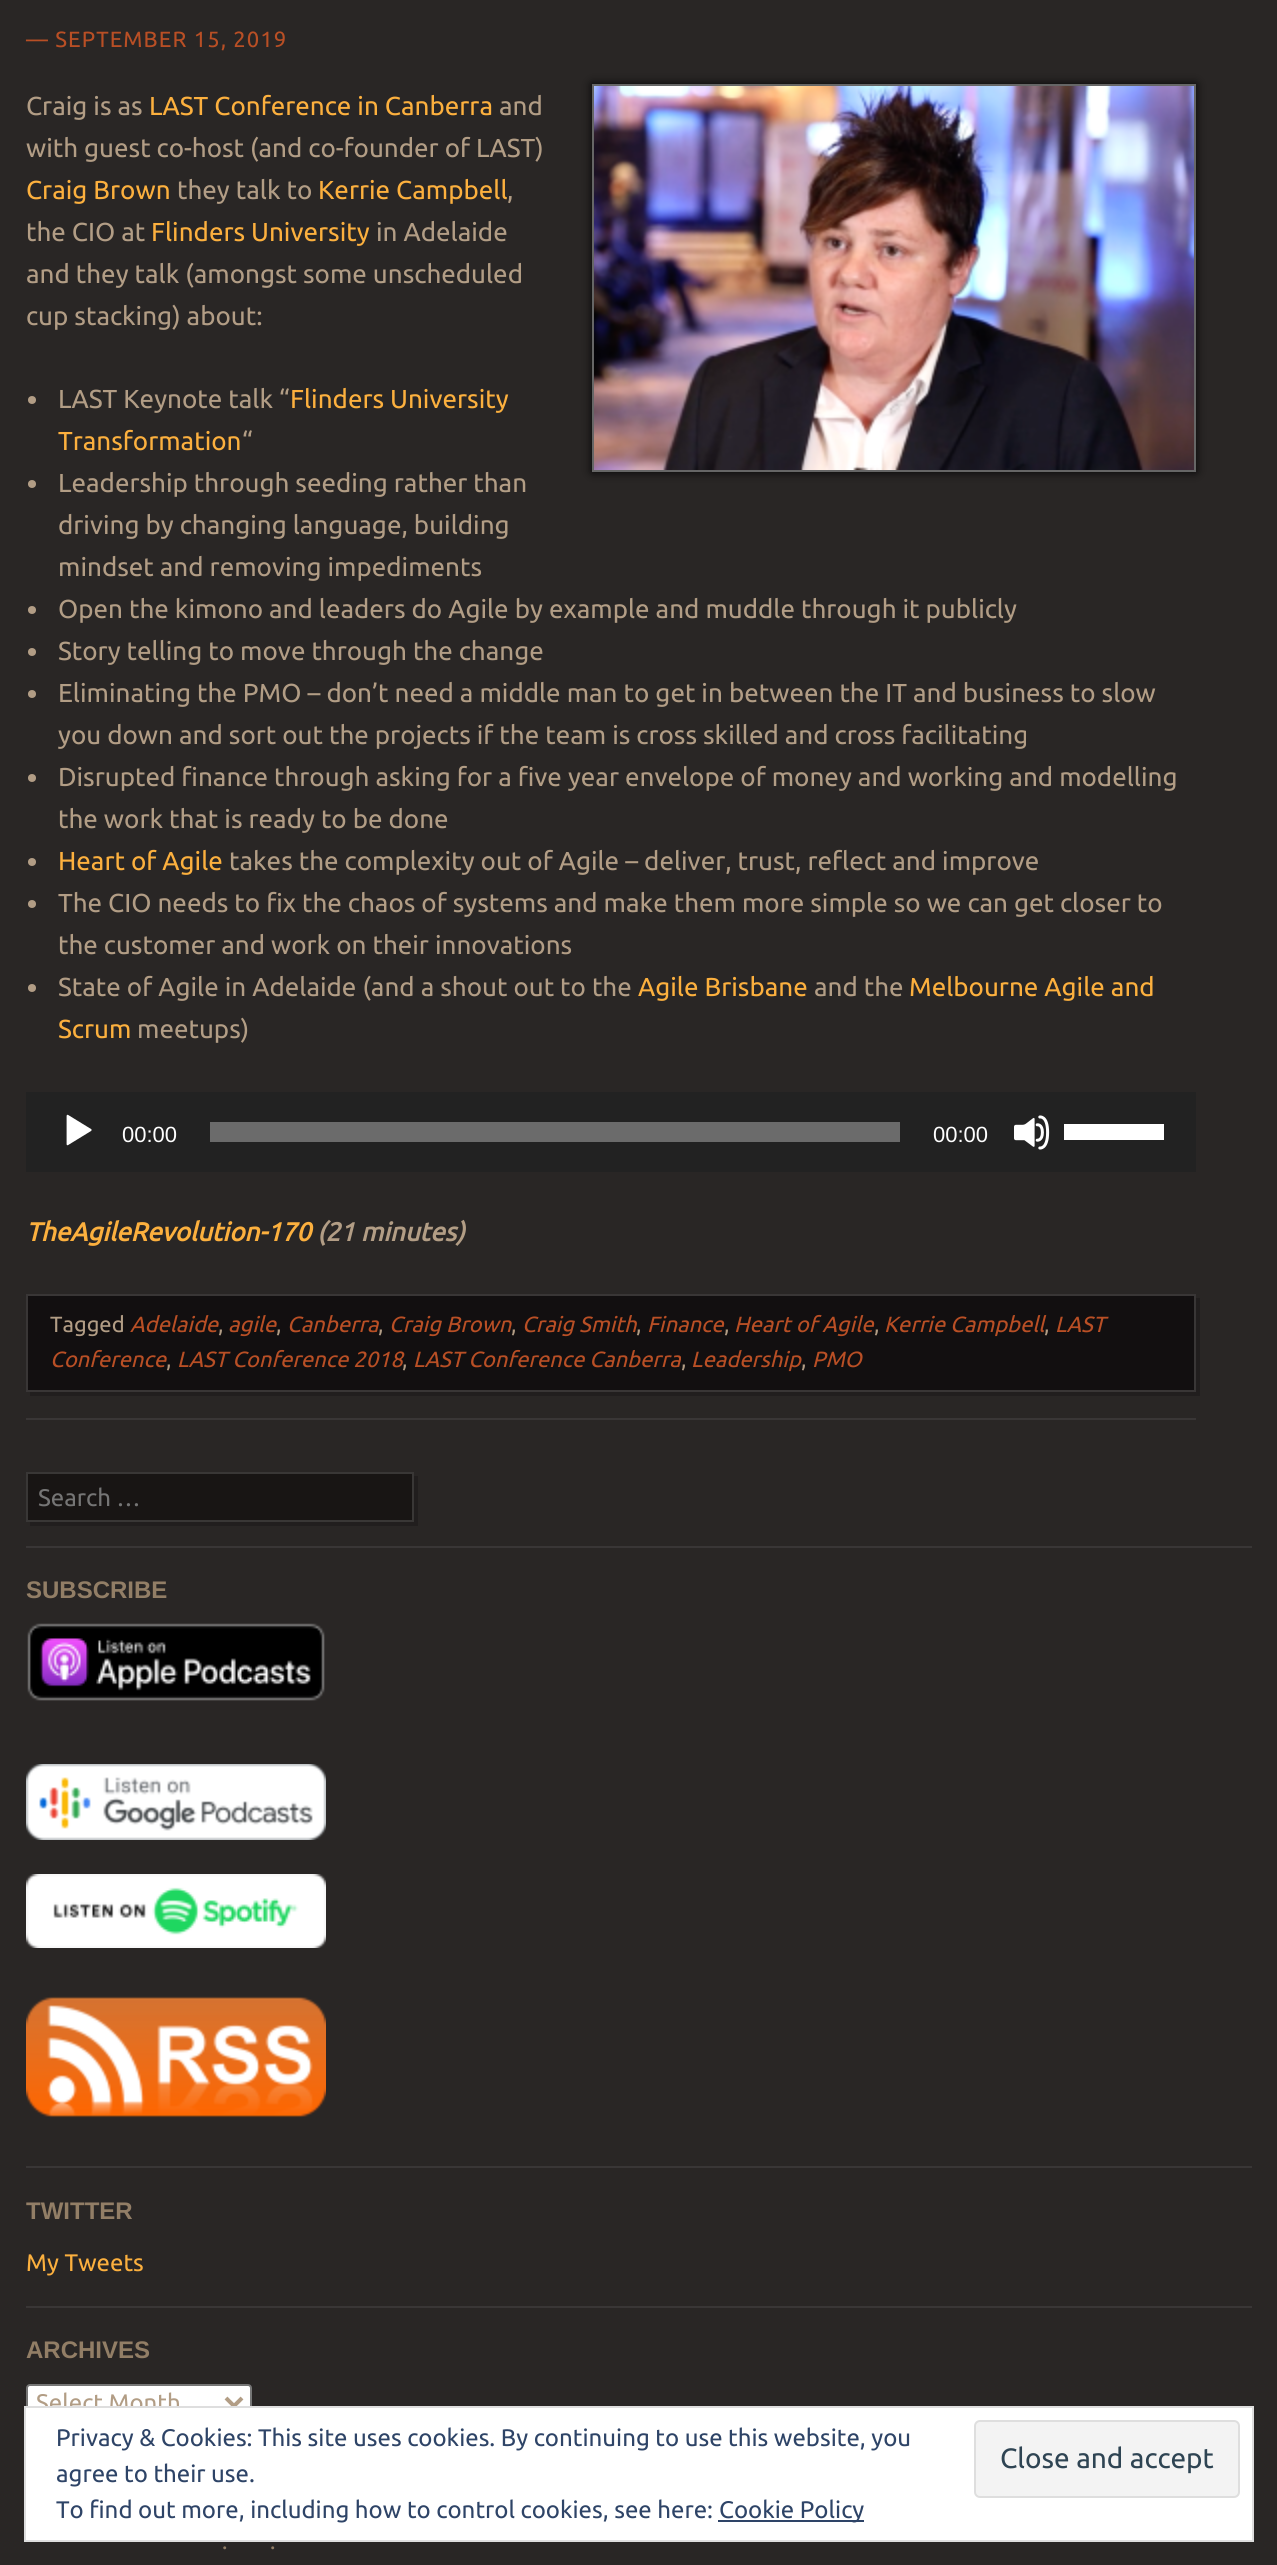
#include <cairo/cairo.h>
#include <math.h>
#include <stddef.h>

static cairo_t *cr;

static void use_color(int r, int g, int b) {
  cairo_set_source_rgb(cr, r / 255.0, g / 255.0, b / 255.0);
}

static void text(double x, double y, const char *s, const char *family, double size, int italic, int bold, int r, int g, int b) {
  cairo_select_font_face(cr, family, italic ? CAIRO_FONT_SLANT_ITALIC : CAIRO_FONT_SLANT_NORMAL,
    bold ? CAIRO_FONT_WEIGHT_BOLD : CAIRO_FONT_WEIGHT_NORMAL);
  cairo_set_font_size(cr, size);
  use_color(r, g, b);
  cairo_move_to(cr, x, y);
  cairo_show_text(cr, s);
}

static void spaced_text(double x, double y, const char *s, double letter, double word) {
  cairo_move_to(cr, x, y);
  while (*s) {
    char ch[5] = {0};
    int n = 0;
    do ch[n++] = *s++; while ((*s & 0xC0) == 0x80);
    cairo_show_text(cr, ch);
    cairo_rel_move_to(cr, letter + word * (*ch == ' '), 0);
  }
}

static void box(double x, double y, double w, double h, int r, int g, int b) {
  use_color(r, g, b);
  cairo_rectangle(cr, x, y, w, h);
  cairo_fill(cr);
}

static void round_rect(double x, double y, double w, double h, double r) {
  cairo_new_sub_path(cr);
  cairo_arc(cr, x + w - r, y + h - r, r, 0, M_PI / 2);
  cairo_arc(cr, x + r, y + h - r, r, M_PI / 2, M_PI);
  cairo_arc(cr, x + r, y + r, r, M_PI, 1.5 * M_PI);
  cairo_arc(cr, x + w - r, y + r, r, 1.5 * M_PI, 2 * M_PI);
  cairo_close_path(cr);
}

static void shadow(double x, double y, double w, double h, double r, double blur, double alpha) {
  cairo_push_group_with_content(cr, CAIRO_CONTENT_ALPHA);
  cairo_set_operator(cr, CAIRO_OPERATOR_SOURCE);
  for (int i = 15; i >= -15 && fmin(w, h) + blur * i / 3 > 0; i -= 2) {
    double e = blur * i / 6;
    cairo_set_source_rgba(cr, 0, 0, 0, alpha * erfc((i - 1) / 8.5) / 2);
    round_rect(x - e, y - e, w + 2 * e, h + 2 * e, fmax(0, fmin(r + e + blur * .6, fmin(w, h) / 2 + e)));
    cairo_fill(cr);
  }
  cairo_pattern_t *soft = cairo_pop_group(cr);
  cairo_mask(cr, soft);
  cairo_pattern_destroy(soft);
}

static void picture(const char *path, double x, double y, double w, double h) {
  cairo_surface_t *image = cairo_image_surface_create_from_png(path);
  cairo_save(cr);
  cairo_set_source_surface(cr, image, x, y);
  cairo_rectangle(cr, x, y, w, h);
  cairo_fill(cr);
  cairo_restore(cr);
  cairo_surface_destroy(image);
}

static void draw(void) {
  use_color(41, 38, 37);
  cairo_paint(cr);
  box(26, 1418, 1170, 2, 57, 54, 54);
  use_color(0, 0, 0);
  shadow(592, 84, 604, 388, 0, 5, 0.9);
  cairo_rectangle(cr, 593, 85, 602, 386);
  use_color(102, 102, 102);
  cairo_stroke(cr);
  picture("img_01.png", 594, 86, 600, 384);
  use_color(178, 157, 133);
  cairo_arc(cr, 32, 400, 4, 0, 2 * M_PI);
  cairo_fill(cr);
  cairo_arc(cr, 32, 484, 4, 0, 2 * M_PI);
  cairo_fill(cr);
  cairo_arc(cr, 32, 610, 4, 0, 2 * M_PI);
  cairo_fill(cr);
  cairo_arc(cr, 32, 652, 4, 0, 2 * M_PI);
  cairo_fill(cr);
  cairo_arc(cr, 32, 694, 4, 0, 2 * M_PI);
  cairo_fill(cr);
  cairo_arc(cr, 32, 778, 4, 0, 2 * M_PI);
  cairo_fill(cr);
  cairo_arc(cr, 32, 862, 4, 0, 2 * M_PI);
  cairo_fill(cr);
  cairo_arc(cr, 32, 904, 4, 0, 2 * M_PI);
  cairo_fill(cr);
  cairo_arc(cr, 32, 988, 4, 0, 2 * M_PI);
  cairo_fill(cr);
  box(26, 1092, 1170, 80, 34, 34, 34);
  picture("img_02.png", 66, 1114, 26, 32);
  box(210, 1122, 690, 20, 107, 107, 107);
  picture("img_03.png", 1014, 1115, 36, 35);
  box(1064, 1124, 100, 16, 255, 255, 255);
  use_color(33, 30, 30);
  cairo_new_path(cr);
  cairo_move_to(cr, 30, 1392);
  cairo_line_to(cr, 30, 1396);
  cairo_line_to(cr, 1200, 1396);
  cairo_line_to(cr, 1200, 1298);
  cairo_line_to(cr, 1196, 1298);
  cairo_line_to(cr, 1196, 1392);
  cairo_close_path(cr);
  cairo_fill(cr);
  use_color(18, 15, 16);
  cairo_rectangle(cr, 27, 1295, 1168, 96);
  cairo_fill_preserve(cr);
  use_color(57, 54, 54);
  cairo_stroke(cr);
  use_color(33, 30, 30);
  cairo_new_path(cr);
  cairo_move_to(cr, 30, 1522);
  cairo_line_to(cr, 30, 1526);
  cairo_line_to(cr, 418, 1526);
  cairo_line_to(cr, 418, 1476);
  cairo_line_to(cr, 414, 1476);
  cairo_line_to(cr, 414, 1522);
  cairo_close_path(cr);
  cairo_fill(cr);
  use_color(24, 21, 20);
  cairo_rectangle(cr, 27, 1473, 386, 48);
  cairo_fill_preserve(cr);
  use_color(57, 55, 54);
  cairo_stroke(cr);
  box(26, 1546, 1226, 2, 57, 54, 54);
  picture("img_04.png", 27, 1623, 298, 78);
  picture("img_05.png", 26, 1764, 300, 76);
  picture("img_06.png", 26, 1874, 300, 74);
  picture("img_07.png", 26, 1996, 300, 122);
  box(26, 2166, 1226, 2, 57, 54, 54);
  box(26, 2306, 1226, 2, 57, 54, 54);
  use_color(255, 255, 255);
  round_rect(27, 2385, 224, 32, 3);
  cairo_fill_preserve(cr);
  use_color(118, 118, 118);
  cairo_stroke(cr);
  cairo_new_path(cr);
  cairo_move_to(cr, 226, 2398);
  cairo_line_to(cr, 234, 2406);
  cairo_line_to(cr, 242, 2398);
  use_color(178, 157, 133);
  cairo_set_line_width(cr, 4);
  cairo_stroke(cr);
  cairo_select_font_face(cr, "Ubuntu", CAIRO_FONT_SLANT_NORMAL, CAIRO_FONT_WEIGHT_NORMAL);
  cairo_set_font_size(cr, 22);
  use_color(185, 79, 37);
  spaced_text(26, 47, "— SEPTEMBER 15, 2019", 1.1, 0);
  text(26, 115, "Craig is as", "Ubuntu", 26, 0, 0, 178, 157, 133);
  text(149, 115, "LAST Conference in Canberra", "Ubuntu", 26, 0, 0, 252, 176, 62);
  text(499, 115, "and", "Ubuntu", 26, 0, 0, 178, 157, 133);
  text(26, 157, "with guest co-host (and co-founder of LAST)", "Ubuntu", 26, 0, 0, 178, 157, 133);
  text(26, 199, "Craig Brown", "Ubuntu", 26, 0, 0, 252, 176, 62);
  text(177, 199, "they talk to", "Ubuntu", 26, 0, 0, 178, 157, 133);
  text(318, 199, "Kerrie Campbell", "Ubuntu", 26, 0, 0, 252, 176, 62);
  text(507, 199, ",", "Ubuntu", 26, 0, 0, 178, 157, 133);
  text(26, 241, "the CIO at", "Ubuntu", 26, 0, 0, 178, 157, 133);
  text(151, 241, "Flinders University", "Ubuntu", 26, 0, 0, 252, 176, 62);
  text(376, 241, "in Adelaide", "Ubuntu", 26, 0, 0, 178, 157, 133);
  text(26, 283, "and they talk (amongst some unscheduled", "Ubuntu", 26, 0, 0, 178, 157, 133);
  text(26, 325, "cup stacking) about:", "Ubuntu", 26, 0, 0, 178, 157, 133);
  text(58, 408, "LAST Keynote talk “", "Ubuntu", 26, 0, 0, 178, 157, 133);
  text(290, 408, "Flinders University", "Ubuntu", 26, 0, 0, 252, 176, 62);
  text(58, 450, "Transformation", "Ubuntu", 26, 0, 0, 252, 176, 62);
  text(242, 450, "“", "Ubuntu", 26, 0, 0, 178, 157, 133);
  text(58, 492, "Leadership through seeding rather than", "Ubuntu", 26, 0, 0, 178, 157, 133);
  text(58, 534, "driving by changing language, building", "Ubuntu", 26, 0, 0, 178, 157, 133);
  text(58, 576, "mindset and removing impediments", "Ubuntu", 26, 0, 0, 178, 157, 133);
  text(58, 618, "Open the kimono and leaders do Agile by example and muddle through it publicly", "Ubuntu", 26, 0, 0, 178, 157, 133);
  text(58, 660, "Story telling to move through the change", "Ubuntu", 26, 0, 0, 178, 157, 133);
  text(58, 702, "Eliminating the PMO – don’t need a middle man to get in between the IT and business to slow", "Ubuntu", 26, 0, 0, 178, 157, 133);
  text(58, 744, "you down and sort out the projects if the team is cross skilled and cross facilitating", "Ubuntu", 26, 0, 0, 178, 157, 133);
  text(58, 786, "Disrupted finance through asking for a five year envelope of money and working and modelling", "Ubuntu", 26, 0, 0, 178, 157, 133);
  text(58, 828, "the work that is ready to be done", "Ubuntu", 26, 0, 0, 178, 157, 133);
  text(58, 870, "Heart of Agile", "Ubuntu", 26, 0, 0, 252, 176, 62);
  text(229, 870, "takes the complexity out of Agile – deliver, trust, reflect and improve", "Ubuntu", 26, 0, 0, 178, 157, 133);
  text(58, 912, "The CIO needs to fix the chaos of systems and make them more simple so we can get closer to", "Ubuntu", 26, 0, 0, 178, 157, 133);
  text(58, 954, "the customer and work on their innovations", "Ubuntu", 26, 0, 0, 178, 157, 133);
  text(58, 996, "State of Agile in Adelaide (and a shout out to the", "Ubuntu", 26, 0, 0, 178, 157, 133);
  text(638, 996, "Agile Brisbane", "Ubuntu", 26, 0, 0, 252, 176, 62);
  text(814, 996, "and the", "Ubuntu", 26, 0, 0, 178, 157, 133);
  text(909, 996, "Melbourne Agile and", "Ubuntu", 26, 0, 0, 252, 176, 62);
  text(58, 1038, "Scrum", "Ubuntu", 26, 0, 0, 252, 176, 62);
  text(137, 1038, "meetups)", "Ubuntu", 26, 0, 0, 178, 157, 133);
  text(122, 1142, "00:00", "Liberation Sans", 22, 0, 0, 255, 255, 255);
  text(933, 1142, "00:00", "Liberation Sans", 22, 0, 0, 255, 255, 255);
  text(26, 1241, "TheAgileRevolution-170", "Ubuntu", 26, 1, 1, 252, 176, 62);
  text(317, 1241, "(21 minutes)", "Ubuntu", 26, 1, 1, 178, 157, 133);
  text(50, 1332, "Tagged", "Ubuntu", 22, 0, 0, 178, 157, 133);
  text(130, 1332, "Adelaide", "Ubuntu", 22, 1, 0, 185, 79, 37);
  text(218, 1332, ",", "Ubuntu", 22, 0, 0, 178, 157, 133);
  text(228, 1332, "agile", "Ubuntu", 22, 1, 0, 185, 79, 37);
  text(276, 1332, ",", "Ubuntu", 22, 0, 0, 178, 157, 133);
  text(287, 1332, "Canberra", "Ubuntu", 22, 1, 0, 185, 79, 37);
  text(378, 1332, ",", "Ubuntu", 22, 0, 0, 178, 157, 133);
  text(389, 1332, "Craig Brown", "Ubuntu", 22, 1, 0, 185, 79, 37);
  text(511, 1332, ",", "Ubuntu", 22, 0, 0, 178, 157, 133);
  text(522, 1332, "Craig Smith", "Ubuntu", 22, 1, 0, 185, 79, 37);
  text(636, 1332, ",", "Ubuntu", 22, 0, 0, 178, 157, 133);
  text(647, 1332, "Finance", "Ubuntu", 22, 1, 0, 185, 79, 37);
  text(724, 1332, ",", "Ubuntu", 22, 0, 0, 178, 157, 133);
  text(734, 1332, "Heart of Agile", "Ubuntu", 22, 1, 0, 185, 79, 37);
  text(874, 1332, ",", "Ubuntu", 22, 0, 0, 178, 157, 133);
  text(884, 1332, "Kerrie Campbell", "Ubuntu", 22, 1, 0, 185, 79, 37);
  text(1055, 1332, "LAST", "Ubuntu", 22, 1, 0, 185, 79, 37);
  text(1044, 1332, ",", "Ubuntu", 22, 0, 0, 178, 157, 133);
  text(50, 1367, "Conference", "Ubuntu", 22, 1, 0, 185, 79, 37);
  text(166, 1367, ",", "Ubuntu", 22, 0, 0, 178, 157, 133);
  text(177, 1367, "LAST Conference 2018", "Ubuntu", 22, 1, 0, 185, 79, 37);
  text(402, 1367, ",", "Ubuntu", 22, 0, 0, 178, 157, 133);
  text(413, 1367, "LAST Conference Canberra", "Ubuntu", 22, 1, 0, 185, 79, 37);
  text(681, 1367, ",", "Ubuntu", 22, 0, 0, 178, 157, 133);
  text(691, 1367, "Leadership", "Ubuntu", 22, 1, 0, 185, 79, 37);
  text(801, 1367, ",", "Ubuntu", 22, 0, 0, 178, 157, 133);
  text(812, 1367, "PMO", "Ubuntu", 22, 1, 0, 185, 79, 37);
  text(38, 1506, "Search …", "Ubuntu", 24, 0, 0, 117, 117, 117);
  text(26, 1598, "SUBSCRIBE", "Liberation Sans", 24, 0, 1, 146, 126, 102);
  text(26, 2219, "TWITTER", "Liberation Sans", 24, 0, 1, 146, 126, 102);
  text(26, 2271, "My Tweets", "Ubuntu", 24, 0, 0, 252, 176, 62);
  text(26, 2358, "ARCHIVES", "Liberation Sans", 24, 0, 1, 146, 126, 102);
  text(36, 2411, "Select Month", "Ubuntu", 24, 0, 0, 178, 157, 133);
  text(222, 2549, ".", "Ubuntu", 22, 0, 0, 146, 126, 102);
  text(270, 2549, ".", "Ubuntu", 22, 0, 0, 146, 126, 102);
  use_color(255, 255, 255);
  cairo_rectangle(cr, 25, 2407, 1228, 134);
  cairo_fill_preserve(cr);
  use_color(222, 222, 222);
  cairo_set_line_width(cr, 2);
  cairo_stroke(cr);
  text(56, 2446, "Privacy & Cookies: This site uses cookies. By continuing to use this website, you", "Ubuntu", 24, 0, 0, 46, 68, 103);
  text(56, 2482, "agree to their use.", "Ubuntu", 24, 0, 0, 46, 68, 103);
  use_color(243, 243, 243);
  round_rect(975, 2421, 264, 76, 5);
  cairo_fill_preserve(cr);
  use_color(222, 222, 222);
  cairo_stroke(cr);
  text(1000, 2468, "Close and accept", "Ubuntu", 28, 0, 0, 46, 68, 83);
  text(56, 2518, "To find out more, including how to control cookies, see here:", "Ubuntu", 24, 0, 0, 46, 68, 103);
  box(718, 2520, 146, 2, 46, 68, 103);
  text(719, 2518, "Cookie Policy", "Ubuntu", 24, 0, 0, 46, 68, 103);
}

int main(void) {
  cairo_surface_t *surface = cairo_image_surface_create(CAIRO_FORMAT_RGB24, 1277, 2565);
  cr = cairo_create(surface);
  cairo_font_options_t *options = cairo_font_options_create();
  cairo_font_options_set_hint_metrics(options, CAIRO_HINT_METRICS_OFF);
  cairo_font_options_set_hint_style(options, CAIRO_HINT_STYLE_NONE);
  cairo_set_font_options(cr, options);
  cairo_set_miter_limit(cr, 4);
  draw();
  cairo_surface_write_to_png(surface, "out.png");
  cairo_font_options_destroy(options);
  cairo_destroy(cr);
  cairo_surface_destroy(surface);
  return 0;
}
